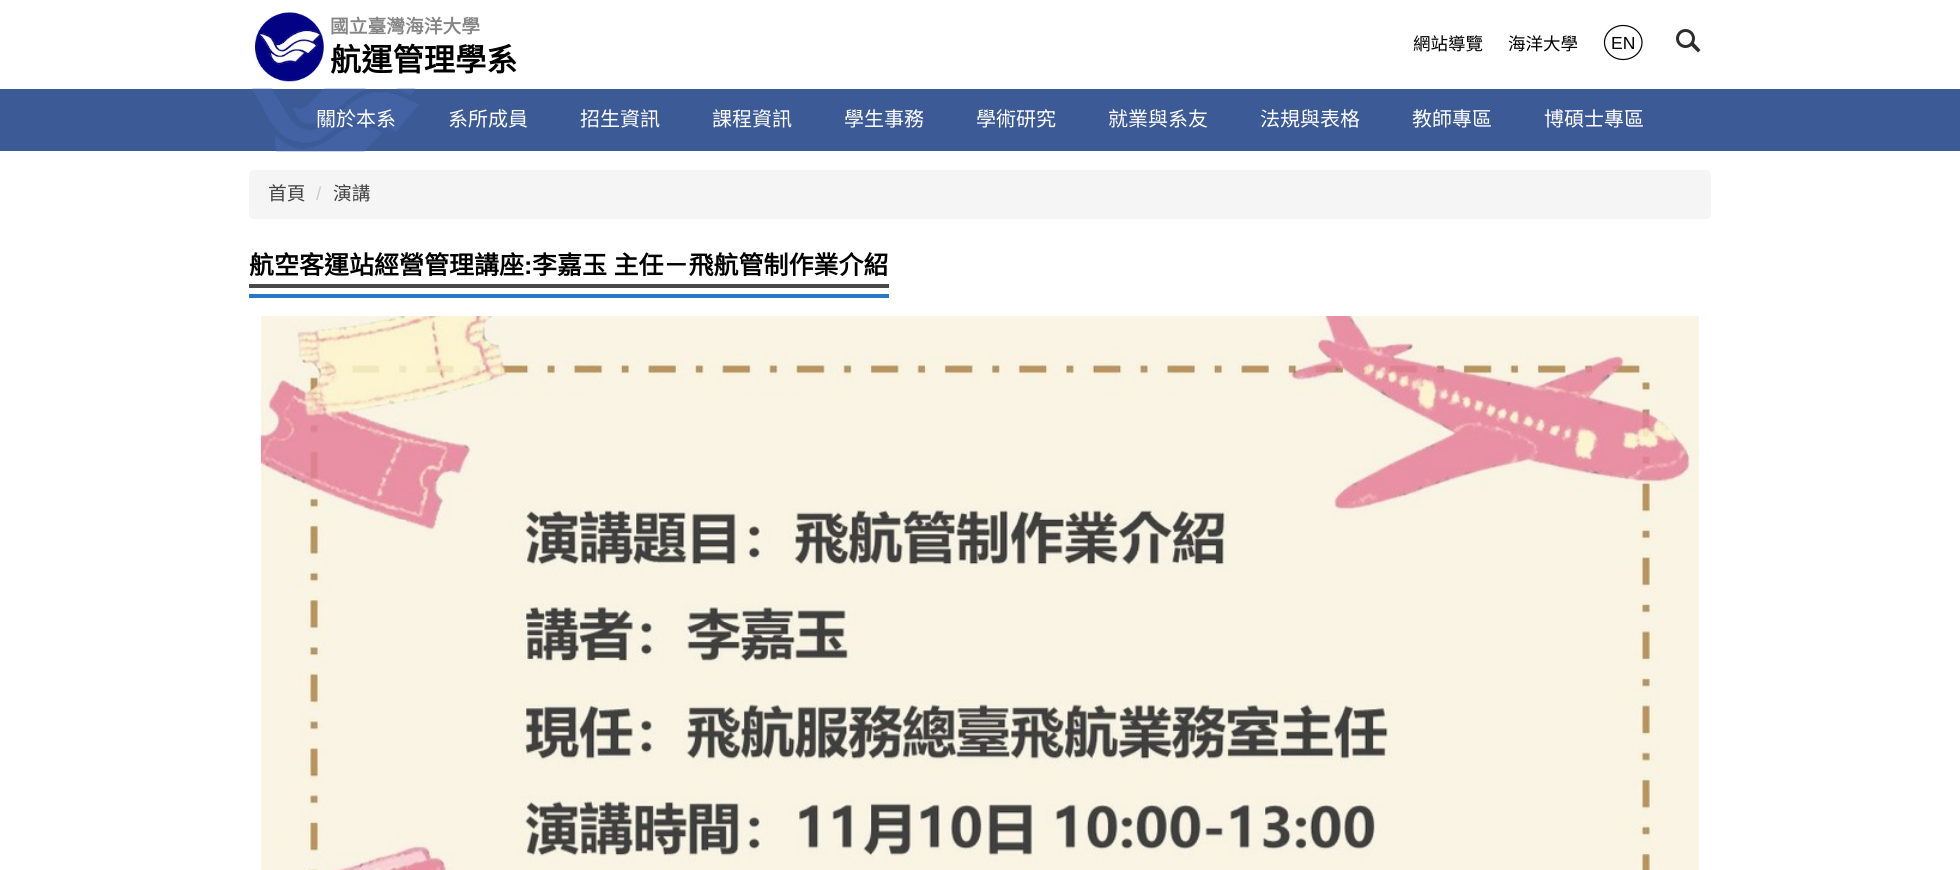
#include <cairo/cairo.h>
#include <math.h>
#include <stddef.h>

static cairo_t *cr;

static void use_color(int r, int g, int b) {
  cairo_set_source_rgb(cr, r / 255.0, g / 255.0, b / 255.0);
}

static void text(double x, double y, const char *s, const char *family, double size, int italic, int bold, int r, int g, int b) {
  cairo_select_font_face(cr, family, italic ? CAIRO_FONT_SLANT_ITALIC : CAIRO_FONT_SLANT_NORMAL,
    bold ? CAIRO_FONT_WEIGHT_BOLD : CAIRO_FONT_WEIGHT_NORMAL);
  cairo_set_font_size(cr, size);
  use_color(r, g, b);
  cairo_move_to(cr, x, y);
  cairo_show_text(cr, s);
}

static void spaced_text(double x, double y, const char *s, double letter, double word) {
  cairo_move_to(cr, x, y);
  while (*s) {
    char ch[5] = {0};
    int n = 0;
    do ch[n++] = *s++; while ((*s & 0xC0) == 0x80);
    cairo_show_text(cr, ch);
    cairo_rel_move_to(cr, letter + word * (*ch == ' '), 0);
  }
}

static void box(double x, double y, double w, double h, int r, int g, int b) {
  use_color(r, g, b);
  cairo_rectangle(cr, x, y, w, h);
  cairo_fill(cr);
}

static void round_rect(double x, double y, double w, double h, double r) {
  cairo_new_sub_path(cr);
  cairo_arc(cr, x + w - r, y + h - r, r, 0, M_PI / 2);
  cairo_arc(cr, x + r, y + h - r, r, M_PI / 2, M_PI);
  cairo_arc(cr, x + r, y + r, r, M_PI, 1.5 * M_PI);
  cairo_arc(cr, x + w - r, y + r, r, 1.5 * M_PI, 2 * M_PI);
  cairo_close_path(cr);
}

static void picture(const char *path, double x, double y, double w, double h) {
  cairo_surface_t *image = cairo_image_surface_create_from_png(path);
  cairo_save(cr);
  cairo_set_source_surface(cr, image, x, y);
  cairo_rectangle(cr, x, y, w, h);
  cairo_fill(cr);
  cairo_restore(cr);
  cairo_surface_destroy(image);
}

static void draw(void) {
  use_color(255, 255, 255);
  cairo_paint(cr);
  picture("img_01.png", 255, 12, 69, 70);
  cairo_arc(cr, 1685.5, 38.5, 8, 0, 2 * M_PI);
  use_color(44, 44, 44);
  cairo_set_line_width(cr, 3);
  cairo_stroke(cr);
  cairo_new_path(cr);
  cairo_move_to(cr, 1692, 41);
  cairo_line_to(cr, 1700.5, 50);
  cairo_line_to(cr, 1698, 52.5);
  cairo_line_to(cr, 1689.5, 44);
  cairo_close_path(cr);
  cairo_fill(cr);
  cairo_new_path(cr);
  cairo_move_to(cr, 1623, 25.5);
  cairo_curve_to(cr, 1633.5, 25.5, 1642, 33, 1642, 42.5);
  cairo_curve_to(cr, 1642, 52, 1633.5, 59.5, 1623, 59.5);
  cairo_curve_to(cr, 1613, 59.5, 1604.5, 52, 1604.5, 42.5);
  cairo_curve_to(cr, 1604.5, 33, 1613, 25.5, 1623, 25.5);
  cairo_close_path(cr);
  use_color(0, 0, 0);
  cairo_set_line_width(cr, 1.2);
  cairo_stroke(cr);
  box(0, 89, 1960, 62, 60, 90, 150);
  picture("img_02.png", 251, 88, 168, 64);
  use_color(245, 245, 245);
  round_rect(249, 170, 1462, 49, 5);
  cairo_fill(cr);
  box(249, 294, 640, 4, 40, 120, 200);
  box(249, 284, 640, 4, 73, 73, 73);
  picture("img_03.png", 261, 316, 1438, 554);
  text(330, 33, "國立臺灣海洋大學", "Noto Sans CJK TC", 18.75, 0, 1, 133, 133, 133);
  text(330, 71, "航運管理學系", "Noto Sans CJK TC", 31.25, 0, 1, 0, 0, 0);
  text(1413, 50, "網站導覽", "Noto Sans CJK TC", 17.5, 0, 0, 0, 0, 0);
  text(1508, 50, "海洋大學", "Noto Sans CJK TC", 17.5, 0, 0, 0, 0, 0);
  text(1611, 49, "EN", "Liberation Sans", 17.5, 0, 0, 0, 0, 0);
  text(316, 126, "關於本系", "Noto Sans CJK TC", 20, 0, 0, 255, 255, 255);
  text(448, 126, "系所成員", "Noto Sans CJK TC", 20, 0, 0, 255, 255, 255);
  text(580, 126, "招生資訊", "Noto Sans CJK TC", 20, 0, 0, 255, 255, 255);
  text(712, 126, "課程資訊", "Noto Sans CJK TC", 20, 0, 0, 255, 255, 255);
  text(844, 126, "學生事務", "Noto Sans CJK TC", 20, 0, 0, 255, 255, 255);
  text(976, 126, "學術研究", "Noto Sans CJK TC", 20, 0, 0, 255, 255, 255);
  text(1108, 126, "就業與系友", "Noto Sans CJK TC", 20, 0, 0, 255, 255, 255);
  text(1260, 126, "法規與表格", "Noto Sans CJK TC", 20, 0, 0, 255, 255, 255);
  text(1412, 126, "教師專區", "Noto Sans CJK TC", 20, 0, 0, 255, 255, 255);
  text(1544, 126, "博碩士專區", "Noto Sans CJK TC", 20, 0, 0, 255, 255, 255);
  text(268, 200, "首頁", "Noto Sans CJK TC", 18.75, 0, 0, 67, 67, 67);
  text(316, 200, "/", "Liberation Sans", 18.75, 0, 0, 204, 204, 204);
  text(333, 200, "演講", "Noto Sans CJK TC", 18.75, 0, 0, 67, 67, 67);
  text(249, 274, "航空客運站經營管理講座", "Noto Sans CJK TC", 25, 0, 1, 0, 0, 0);
  text(524, 274, ":", "Liberation Sans", 25, 0, 1, 0, 0, 0);
  cairo_select_font_face(cr, "Noto Sans CJK TC", CAIRO_FONT_SLANT_NORMAL, CAIRO_FONT_WEIGHT_BOLD);
  spaced_text(532, 274, "李嘉玉 主任－飛航管制作業介紹", 0, 1);
}

int main(void) {
  cairo_surface_t *surface = cairo_image_surface_create(CAIRO_FORMAT_RGB24, 1960, 870);
  cr = cairo_create(surface);
  cairo_font_options_t *options = cairo_font_options_create();
  cairo_font_options_set_hint_metrics(options, CAIRO_HINT_METRICS_OFF);
  cairo_font_options_set_hint_style(options, CAIRO_HINT_STYLE_NONE);
  cairo_set_font_options(cr, options);
  cairo_set_miter_limit(cr, 4);
  draw();
  cairo_surface_write_to_png(surface, "out.png");
  cairo_font_options_destroy(options);
  cairo_destroy(cr);
  cairo_surface_destroy(surface);
  return 0;
}
